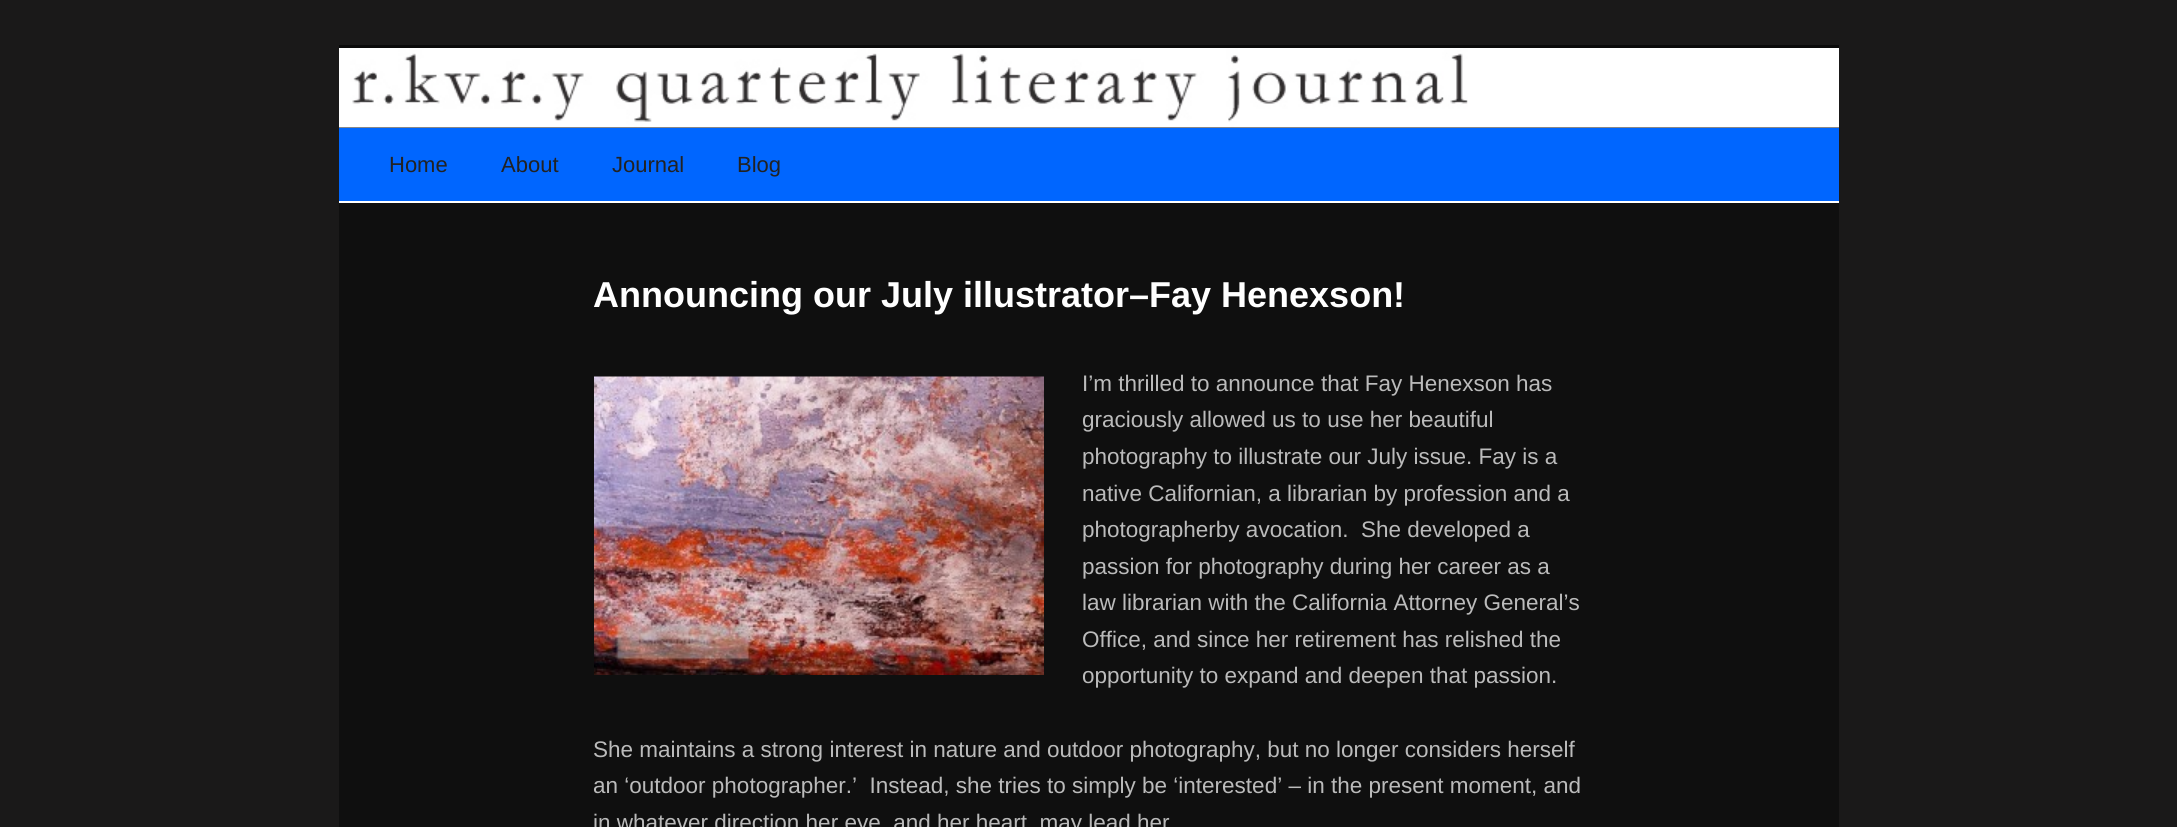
#include <cairo/cairo.h>
#include <math.h>
#include <stddef.h>

static cairo_t *cr;

static void use_color(int r, int g, int b) {
  cairo_set_source_rgb(cr, r / 255.0, g / 255.0, b / 255.0);
}

static void text(double x, double y, const char *s, const char *family, double size, int italic, int bold, int r, int g, int b) {
  cairo_select_font_face(cr, family, italic ? CAIRO_FONT_SLANT_ITALIC : CAIRO_FONT_SLANT_NORMAL,
    bold ? CAIRO_FONT_WEIGHT_BOLD : CAIRO_FONT_WEIGHT_NORMAL);
  cairo_set_font_size(cr, size);
  use_color(r, g, b);
  cairo_move_to(cr, x, y);
  cairo_show_text(cr, s);
}

static void box(double x, double y, double w, double h, int r, int g, int b) {
  use_color(r, g, b);
  cairo_rectangle(cr, x, y, w, h);
  cairo_fill(cr);
}

static void picture(const char *path, double x, double y, double w, double h) {
  cairo_surface_t *image = cairo_image_surface_create_from_png(path);
  cairo_save(cr);
  cairo_set_source_surface(cr, image, x, y);
  cairo_rectangle(cr, x, y, w, h);
  cairo_fill(cr);
  cairo_restore(cr);
  cairo_surface_destroy(image);
}

static void draw(void) {
  use_color(26, 25, 25);
  cairo_paint(cr);
  box(339, 127, 1500, 700, 15, 15, 15);
  box(339, 45, 1500, 3, 10, 10, 10);
  picture("img_01.png", 339, 48, 1500, 80);
  box(339, 128, 1500, 73, 0, 102, 255);
  box(339, 201, 1500, 2, 255, 255, 255);
  picture("img_02.png", 594, 376, 450, 299);
  text(389, 172, "Home", "Liberation Sans", 22, 0, 0, 34, 34, 34);
  text(501, 172, "About", "Liberation Sans", 22, 0, 0, 34, 34, 34);
  text(612, 172, "Journal", "Liberation Sans", 22, 0, 0, 34, 34, 34);
  text(737, 172, "Blog", "Liberation Sans", 22, 0, 0, 34, 34, 34);
  text(593, 307, "Announcing our July illustrator–Fay Henexson!", "Liberation Sans", 36, 0, 1, 255, 255, 255);
  text(1082, 391, "I’m thrilled to announce that Fay Henexson has", "Liberation Sans", 22.5, 0, 0, 187, 187, 187);
  text(1082, 427, "graciously allowed us to use her beautiful", "Liberation Sans", 22.5, 0, 0, 187, 187, 187);
  text(1082, 464, "photography to illustrate our July issue. Fay is a", "Liberation Sans", 22.5, 0, 0, 187, 187, 187);
  text(1082, 501, "native Californian, a librarian by profession and a", "Liberation Sans", 22.5, 0, 0, 187, 187, 187);
  text(1082, 537, "photographerby avocation.  She developed a", "Liberation Sans", 22.5, 0, 0, 187, 187, 187);
  text(1082, 574, "passion for photography during her career as a", "Liberation Sans", 22.5, 0, 0, 187, 187, 187);
  text(1082, 610, "law librarian with the California Attorney General’s", "Liberation Sans", 22.5, 0, 0, 187, 187, 187);
  text(1082, 647, "Office, and since her retirement has relished the", "Liberation Sans", 22.5, 0, 0, 187, 187, 187);
  text(1082, 683, "opportunity to expand and deepen that passion.", "Liberation Sans", 22.5, 0, 0, 187, 187, 187);
  text(593, 757, "She maintains a strong interest in nature and outdoor photography, but no longer considers herself", "Liberation Sans", 22.5, 0, 0, 187, 187, 187);
  text(593, 793, "an ‘outdoor photographer.’  Instead, she tries to simply be ‘interested’ – in the present moment, and", "Liberation Sans", 22.5, 0, 0, 187, 187, 187);
  text(593, 830, "in whatever direction her eye, and her heart, may lead her", "Liberation Sans", 22.5, 0, 0, 187, 187, 187);
}

int main(void) {
  cairo_surface_t *surface = cairo_image_surface_create(CAIRO_FORMAT_RGB24, 2177, 827);
  cr = cairo_create(surface);
  cairo_font_options_t *options = cairo_font_options_create();
  cairo_font_options_set_hint_metrics(options, CAIRO_HINT_METRICS_OFF);
  cairo_font_options_set_hint_style(options, CAIRO_HINT_STYLE_NONE);
  cairo_set_font_options(cr, options);
  cairo_set_miter_limit(cr, 4);
  draw();
  cairo_surface_write_to_png(surface, "out.png");
  cairo_font_options_destroy(options);
  cairo_destroy(cr);
  cairo_surface_destroy(surface);
  return 0;
}
